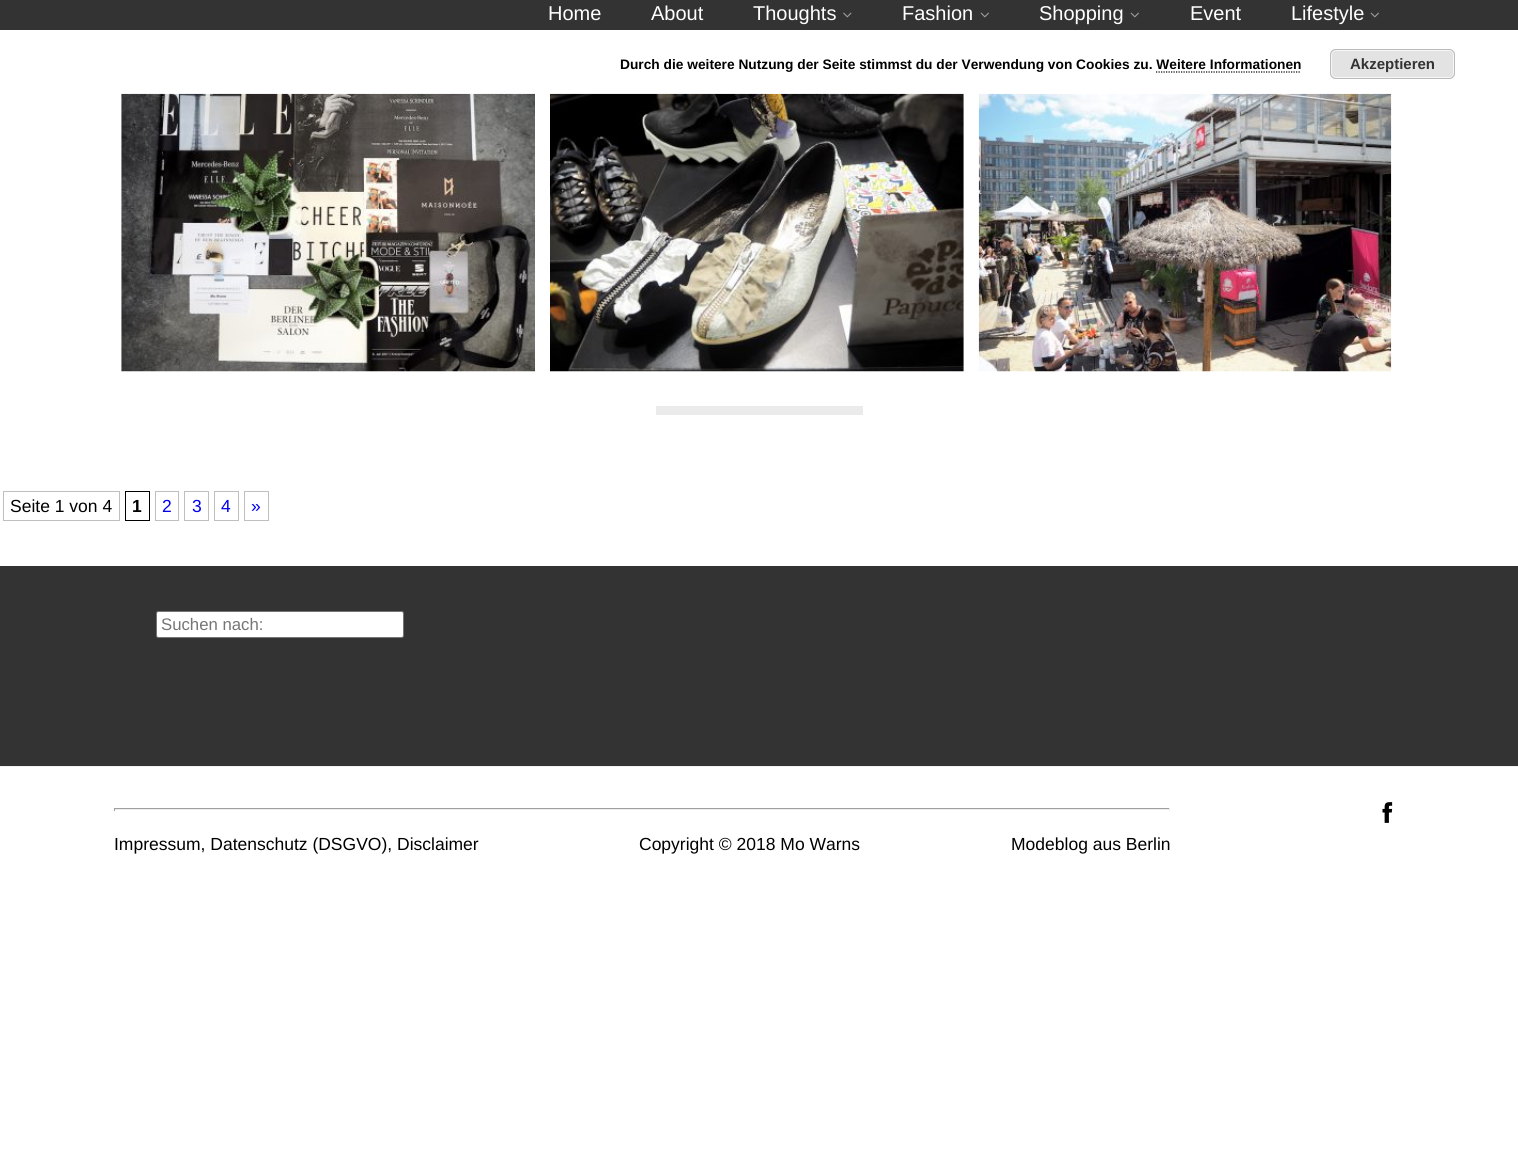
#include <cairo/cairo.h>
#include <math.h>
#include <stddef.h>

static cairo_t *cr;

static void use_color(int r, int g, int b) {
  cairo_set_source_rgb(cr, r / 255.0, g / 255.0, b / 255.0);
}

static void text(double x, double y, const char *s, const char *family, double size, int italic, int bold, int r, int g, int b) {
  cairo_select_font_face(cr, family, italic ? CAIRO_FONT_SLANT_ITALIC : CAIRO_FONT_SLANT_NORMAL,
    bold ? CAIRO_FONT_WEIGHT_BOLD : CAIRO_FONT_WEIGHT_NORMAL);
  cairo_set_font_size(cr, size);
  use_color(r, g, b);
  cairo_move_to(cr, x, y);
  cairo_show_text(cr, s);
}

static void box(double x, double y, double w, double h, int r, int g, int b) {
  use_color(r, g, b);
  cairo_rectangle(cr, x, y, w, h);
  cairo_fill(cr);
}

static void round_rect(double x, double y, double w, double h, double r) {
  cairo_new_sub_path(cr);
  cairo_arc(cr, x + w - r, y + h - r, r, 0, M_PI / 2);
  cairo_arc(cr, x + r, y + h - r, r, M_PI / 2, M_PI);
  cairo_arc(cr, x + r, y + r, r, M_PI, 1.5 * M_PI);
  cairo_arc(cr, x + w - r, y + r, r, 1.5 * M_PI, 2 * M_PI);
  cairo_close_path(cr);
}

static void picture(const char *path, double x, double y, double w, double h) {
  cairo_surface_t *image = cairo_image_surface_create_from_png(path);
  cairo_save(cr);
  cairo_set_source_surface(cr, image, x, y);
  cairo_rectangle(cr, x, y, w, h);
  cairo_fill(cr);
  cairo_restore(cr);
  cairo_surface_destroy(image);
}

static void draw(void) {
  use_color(255, 255, 255);
  cairo_paint(cr);
  box(0, 0, 1518, 30, 51, 51, 51);
  picture("img_01.png", 843, 12, 9, 6);
  picture("img_02.png", 980, 12, 9, 6);
  picture("img_02.png", 1130, 12, 9, 6);
  picture("img_02.png", 1370, 12, 9, 6);
  use_color(227, 227, 227);
  round_rect(1330, 49, 125, 30, 6);
  cairo_fill(cr);
  round_rect(1331.5, 50.5, 122, 27, 4.5);
  use_color(246, 246, 246);
  cairo_set_line_width(cr, 1);
  cairo_stroke(cr);
  round_rect(1330.5, 49.5, 124, 29, 5.5);
  use_color(187, 187, 187);
  cairo_stroke(cr);
  cairo_new_path(cr);
  cairo_move_to(cr, 1156, 72);
  cairo_line_to(cr, 1301, 72);
  use_color(0, 0, 0);
  cairo_set_line_width(cr, 1.2);
  cairo_set_dash(cr, (double[]){1.25, 1.25}, 2, 0);
  cairo_stroke(cr);
  picture("img_03.png", 121, 93, 414, 279);
  picture("img_04.png", 550, 93, 414, 279);
  picture("img_05.png", 978, 93, 414, 279);
  box(656, 406, 207, 9, 235, 235, 235);
  cairo_rectangle(cr, 3.5, 491.5, 116, 29);
  use_color(191, 191, 191);
  cairo_set_line_width(cr, 1);
  cairo_set_dash(cr, NULL, 0, 0);
  cairo_stroke(cr);
  cairo_rectangle(cr, 125.5, 491.5, 24, 29);
  use_color(0, 0, 0);
  cairo_stroke(cr);
  cairo_rectangle(cr, 155.5, 491.5, 23, 29);
  use_color(191, 191, 191);
  cairo_stroke(cr);
  cairo_rectangle(cr, 184.5, 491.5, 24, 29);
  cairo_stroke(cr);
  cairo_rectangle(cr, 214.5, 491.5, 24, 29);
  cairo_stroke(cr);
  cairo_rectangle(cr, 244.5, 491.5, 24, 29);
  cairo_stroke(cr);
  box(0, 566, 1518, 200, 51, 51, 51);
  use_color(255, 255, 255);
  round_rect(156.5, 611.5, 247, 26, 2);
  cairo_fill_preserve(cr);
  use_color(118, 118, 118);
  cairo_stroke(cr);
  box(0, 766, 1518, 1, 242, 242, 242);
  picture("img_06.png", 1382, 802, 11, 21);
  box(114, 808, 1056, 1, 159, 159, 159);
  box(1169, 808, 1, 3, 238, 238, 238);
  box(114, 809, 1056, 1, 238, 238, 238);
  box(114, 808, 1, 3, 159, 159, 159);
  text(548, 20, "Home", "Liberation Sans", 20, 0, 0, 255, 255, 255);
  text(651, 20, "About", "Liberation Sans", 20, 0, 0, 255, 255, 255);
  text(753, 20, "Thoughts", "Liberation Sans", 20, 0, 0, 255, 255, 255);
  text(902, 20, "Fashion", "Liberation Sans", 20, 0, 0, 255, 255, 255);
  text(1039, 20, "Shopping", "Liberation Sans", 20, 0, 0, 255, 255, 255);
  text(1190, 20, "Event", "Liberation Sans", 20, 0, 0, 255, 255, 255);
  text(1291, 20, "Lifestyle", "Liberation Sans", 20, 0, 0, 255, 255, 255);
  text(620, 69, "Durch die weitere Nutzung der Seite stimmst du der Verwendung von Cookies zu. Weitere Informationen", "Liberation Sans", 13.75, 0, 1, 0, 0, 0);
  text(1350, 69, "Akzeptieren", "Liberation Sans", 15, 0, 1, 51, 51, 51);
  text(10, 512, "Seite 1 von 4", "Liberation Sans", 17.5, 0, 0, 0, 0, 0);
  text(132, 512, "1", "Liberation Sans", 17.5, 0, 1, 0, 0, 0);
  text(162, 512, "2", "Liberation Sans", 17.5, 0, 0, 0, 0, 238);
  text(192, 512, "3", "Liberation Sans", 17.5, 0, 0, 0, 0, 238);
  text(221, 512, "4", "Liberation Sans", 17.5, 0, 0, 0, 0, 238);
  text(251, 512, "»", "Liberation Sans", 17.5, 0, 0, 0, 0, 238);
  text(161, 630, "Suchen nach:", "Liberation Sans", 16.75, 0, 0, 117, 117, 117);
  text(114, 850, "Impressum, Datenschutz (DSGVO), Disclaimer", "Liberation Sans", 17.5, 0, 0, 0, 0, 0);
  text(639, 850, "Copyright © 2018 Mo Warns", "Liberation Sans", 17.5, 0, 0, 0, 0, 0);
  text(1011, 850, "Modeblog aus Berlin", "Liberation Sans", 17.5, 0, 0, 0, 0, 0);
}

int main(void) {
  cairo_surface_t *surface = cairo_image_surface_create(CAIRO_FORMAT_RGB24, 1518, 1170);
  cr = cairo_create(surface);
  cairo_font_options_t *options = cairo_font_options_create();
  cairo_font_options_set_hint_metrics(options, CAIRO_HINT_METRICS_OFF);
  cairo_font_options_set_hint_style(options, CAIRO_HINT_STYLE_NONE);
  cairo_set_font_options(cr, options);
  cairo_set_miter_limit(cr, 4);
  draw();
  cairo_surface_write_to_png(surface, "out.png");
  cairo_font_options_destroy(options);
  cairo_destroy(cr);
  cairo_surface_destroy(surface);
  return 0;
}
